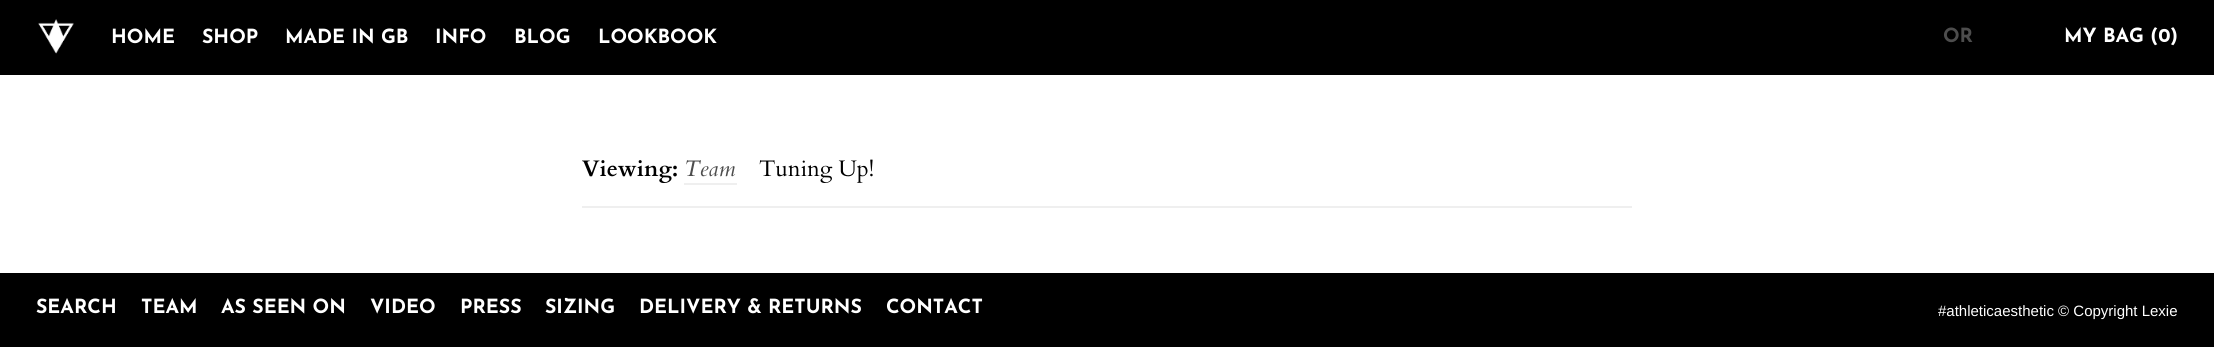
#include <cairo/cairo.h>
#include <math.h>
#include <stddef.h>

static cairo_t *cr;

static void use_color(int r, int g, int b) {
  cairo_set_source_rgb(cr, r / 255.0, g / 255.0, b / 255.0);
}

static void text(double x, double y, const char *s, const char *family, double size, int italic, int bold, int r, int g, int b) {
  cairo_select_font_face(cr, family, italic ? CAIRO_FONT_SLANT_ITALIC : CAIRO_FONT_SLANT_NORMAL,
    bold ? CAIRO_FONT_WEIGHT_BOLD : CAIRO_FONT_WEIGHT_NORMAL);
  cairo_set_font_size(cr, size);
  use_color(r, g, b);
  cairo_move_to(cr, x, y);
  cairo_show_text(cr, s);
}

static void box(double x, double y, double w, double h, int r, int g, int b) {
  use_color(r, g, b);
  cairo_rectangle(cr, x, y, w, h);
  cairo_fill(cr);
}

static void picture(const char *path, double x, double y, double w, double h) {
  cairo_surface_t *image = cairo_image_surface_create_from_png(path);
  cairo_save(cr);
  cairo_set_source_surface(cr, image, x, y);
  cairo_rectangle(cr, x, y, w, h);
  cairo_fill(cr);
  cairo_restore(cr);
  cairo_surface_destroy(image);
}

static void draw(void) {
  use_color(255, 255, 255);
  cairo_paint(cr);
  box(0, 0, 2214, 75, 0, 0, 0);
  picture("img_01.png", 38, 19, 36, 35);
  box(582, 206, 1050, 2, 239, 239, 239);
  box(684, 183, 53, 2, 239, 239, 239);
  box(0, 273, 2214, 74, 0, 0, 0);
  text(111, 43, "HOME", "Josefin Sans", 19.5, 0, 1, 255, 255, 255);
  text(202, 43, "SHOP", "Josefin Sans", 19.5, 0, 1, 255, 255, 255);
  text(285, 43, "MADE IN GB", "Josefin Sans", 19.5, 0, 1, 255, 255, 255);
  text(435, 43, "INFO", "Josefin Sans", 19.5, 0, 1, 255, 255, 255);
  text(514, 43, "BLOG", "Josefin Sans", 19.5, 0, 1, 255, 255, 255);
  text(598, 43, "LOOKBOOK", "Josefin Sans", 19.5, 0, 1, 255, 255, 255);
  text(1943, 42, "OR", "Josefin Sans", 19.5, 0, 1, 77, 77, 77);
  text(2064, 42, "MY BAG (0", "Josefin Sans", 19.5, 0, 1, 255, 255, 255);
  text(2170, 42, ")", "Josefin Sans", 19.5, 0, 1, 255, 255, 255);
  text(582, 176, "Viewing:", "Cardo", 22.5, 0, 1, 0, 0, 0);
  text(684, 176, "Team", "Cardo", 22.5, 1, 0, 77, 77, 77);
  text(759, 176, "Tuning Up!", "Cardo", 22.5, 0, 0, 0, 0, 0);
  text(36, 313, "SEARCH", "Josefin Sans", 19.5, 0, 1, 255, 255, 255);
  text(141, 313, "TEAM", "Josefin Sans", 19.5, 0, 1, 255, 255, 255);
  text(221, 313, "AS SEEN ON", "Josefin Sans", 19.5, 0, 1, 255, 255, 255);
  text(370, 313, "VIDEO", "Josefin Sans", 19.5, 0, 1, 255, 255, 255);
  text(460, 313, "PRESS", "Josefin Sans", 19.5, 0, 1, 255, 255, 255);
  text(545, 313, "SIZING", "Josefin Sans", 19.5, 0, 1, 255, 255, 255);
  text(639, 313, "DELIVERY & RETURNS", "Josefin Sans", 19.5, 0, 1, 255, 255, 255);
  text(886, 313, "CONTACT", "Josefin Sans", 19.5, 0, 1, 255, 255, 255);
  text(1938, 316, "#athleticaesthetic © Copyright Lexie", "Liberation Sans", 15, 0, 0, 255, 255, 255);
}

int main(void) {
  cairo_surface_t *surface = cairo_image_surface_create(CAIRO_FORMAT_RGB24, 2214, 347);
  cr = cairo_create(surface);
  cairo_font_options_t *options = cairo_font_options_create();
  cairo_font_options_set_hint_metrics(options, CAIRO_HINT_METRICS_OFF);
  cairo_font_options_set_hint_style(options, CAIRO_HINT_STYLE_NONE);
  cairo_set_font_options(cr, options);
  cairo_set_miter_limit(cr, 4);
  draw();
  cairo_surface_write_to_png(surface, "out.png");
  cairo_font_options_destroy(options);
  cairo_destroy(cr);
  cairo_surface_destroy(surface);
  return 0;
}
